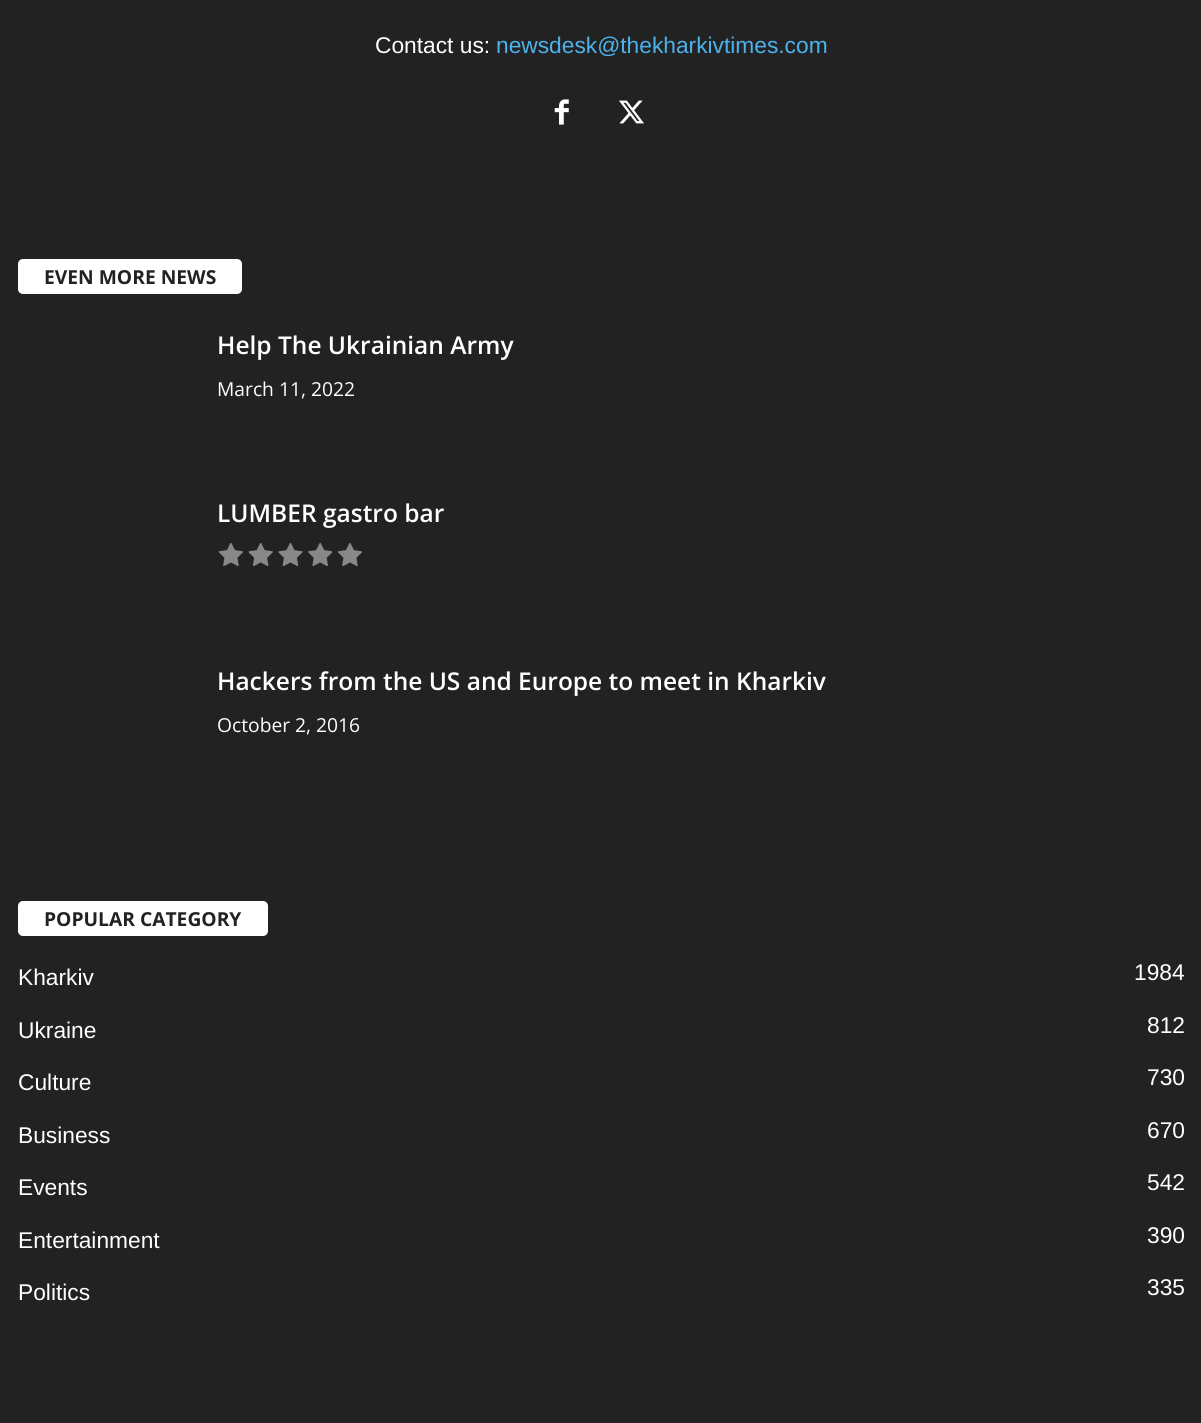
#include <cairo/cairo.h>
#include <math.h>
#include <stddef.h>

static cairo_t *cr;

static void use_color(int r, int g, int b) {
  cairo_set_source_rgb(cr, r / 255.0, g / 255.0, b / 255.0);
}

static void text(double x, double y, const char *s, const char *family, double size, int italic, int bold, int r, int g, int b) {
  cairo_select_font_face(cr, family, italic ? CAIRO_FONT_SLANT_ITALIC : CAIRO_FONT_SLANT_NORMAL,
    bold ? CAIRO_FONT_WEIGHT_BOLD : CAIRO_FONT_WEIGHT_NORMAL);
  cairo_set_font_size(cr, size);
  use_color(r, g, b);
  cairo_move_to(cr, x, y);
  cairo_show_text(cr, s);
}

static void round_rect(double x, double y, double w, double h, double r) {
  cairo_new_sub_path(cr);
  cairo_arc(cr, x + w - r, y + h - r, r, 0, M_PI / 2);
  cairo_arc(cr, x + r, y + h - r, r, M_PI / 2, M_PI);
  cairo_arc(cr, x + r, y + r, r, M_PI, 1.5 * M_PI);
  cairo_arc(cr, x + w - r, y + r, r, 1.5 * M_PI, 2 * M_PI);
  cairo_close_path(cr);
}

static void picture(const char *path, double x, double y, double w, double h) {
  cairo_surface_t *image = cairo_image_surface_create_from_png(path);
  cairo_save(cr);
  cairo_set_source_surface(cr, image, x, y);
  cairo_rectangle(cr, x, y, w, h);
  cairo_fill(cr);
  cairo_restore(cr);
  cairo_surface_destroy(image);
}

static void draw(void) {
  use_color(34, 34, 34);
  cairo_paint(cr);
  picture("img_01.png", 554, 99, 15, 26);
  picture("img_02.png", 619, 100, 25, 24);
  use_color(255, 255, 255);
  round_rect(18, 259, 224, 35, 5);
  cairo_fill(cr);
  picture("img_03.png", 218, 543, 25, 24);
  picture("img_04.png", 248, 542, 25, 25);
  picture("img_05.png", 278, 542, 25, 25);
  picture("img_06.png", 308, 542, 25, 24);
  picture("img_03.png", 337, 543, 25, 24);
  round_rect(18, 901, 250, 35, 5);
  cairo_fill(cr);
  text(375, 53, "Contact us:", "Liberation Sans", 22.75, 0, 0, 255, 255, 255);
  text(496, 53, "newsdesk@thekharkivtimes.com", "Liberation Sans", 22.75, 0, 0, 77, 178, 236);
  text(44, 284, "EVEN MORE NEWS", "Open Sans", 19.25, 0, 1, 34, 34, 34);
  text(217, 354, "Help The Ukrainian Army", "Open Sans SemiBold", 24.5, 0, 0, 255, 255, 255);
  text(217, 396, "March 11, 2022", "Open Sans", 19.25, 0, 0, 255, 255, 255);
  text(217, 522, "LUMBER gastro bar", "Open Sans SemiBold", 24.5, 0, 0, 255, 255, 255);
  text(217, 690, "Hackers from the US and Europe to meet in Kharkiv", "Open Sans SemiBold", 24.5, 0, 0, 255, 255, 255);
  text(217, 732, "October 2, 2016", "Open Sans", 19.25, 0, 0, 255, 255, 255);
  text(44, 926, "POPULAR CATEGORY", "Open Sans", 19.25, 0, 1, 34, 34, 34);
  text(18, 985, "Kharkiv", "Liberation Sans", 22.75, 0, 0, 255, 255, 255);
  text(1134, 980, "1984", "Liberation Sans", 22.75, 0, 0, 255, 255, 255);
  text(18, 1038, "Ukraine", "Liberation Sans", 22.75, 0, 0, 255, 255, 255);
  text(1147, 1033, "812", "Liberation Sans", 22.75, 0, 0, 255, 255, 255);
  text(18, 1090, "Culture", "Liberation Sans", 22.75, 0, 0, 255, 255, 255);
  text(1147, 1085, "730", "Liberation Sans", 22.75, 0, 0, 255, 255, 255);
  text(18, 1143, "Business", "Liberation Sans", 22.75, 0, 0, 255, 255, 255);
  text(1147, 1138, "670", "Liberation Sans", 22.75, 0, 0, 255, 255, 255);
  text(18, 1195, "Events", "Liberation Sans", 22.75, 0, 0, 255, 255, 255);
  text(1147, 1190, "542", "Liberation Sans", 22.75, 0, 0, 255, 255, 255);
  text(18, 1248, "Entertainment", "Liberation Sans", 22.75, 0, 0, 255, 255, 255);
  text(1147, 1243, "390", "Liberation Sans", 22.75, 0, 0, 255, 255, 255);
  text(18, 1300, "Politics", "Liberation Sans", 22.75, 0, 0, 255, 255, 255);
  text(1147, 1295, "335", "Liberation Sans", 22.75, 0, 0, 255, 255, 255);
}

int main(void) {
  cairo_surface_t *surface = cairo_image_surface_create(CAIRO_FORMAT_RGB24, 1201, 1423);
  cr = cairo_create(surface);
  cairo_font_options_t *options = cairo_font_options_create();
  cairo_font_options_set_hint_metrics(options, CAIRO_HINT_METRICS_OFF);
  cairo_font_options_set_hint_style(options, CAIRO_HINT_STYLE_NONE);
  cairo_set_font_options(cr, options);
  cairo_set_miter_limit(cr, 4);
  draw();
  cairo_surface_write_to_png(surface, "out.png");
  cairo_font_options_destroy(options);
  cairo_destroy(cr);
  cairo_surface_destroy(surface);
  return 0;
}
